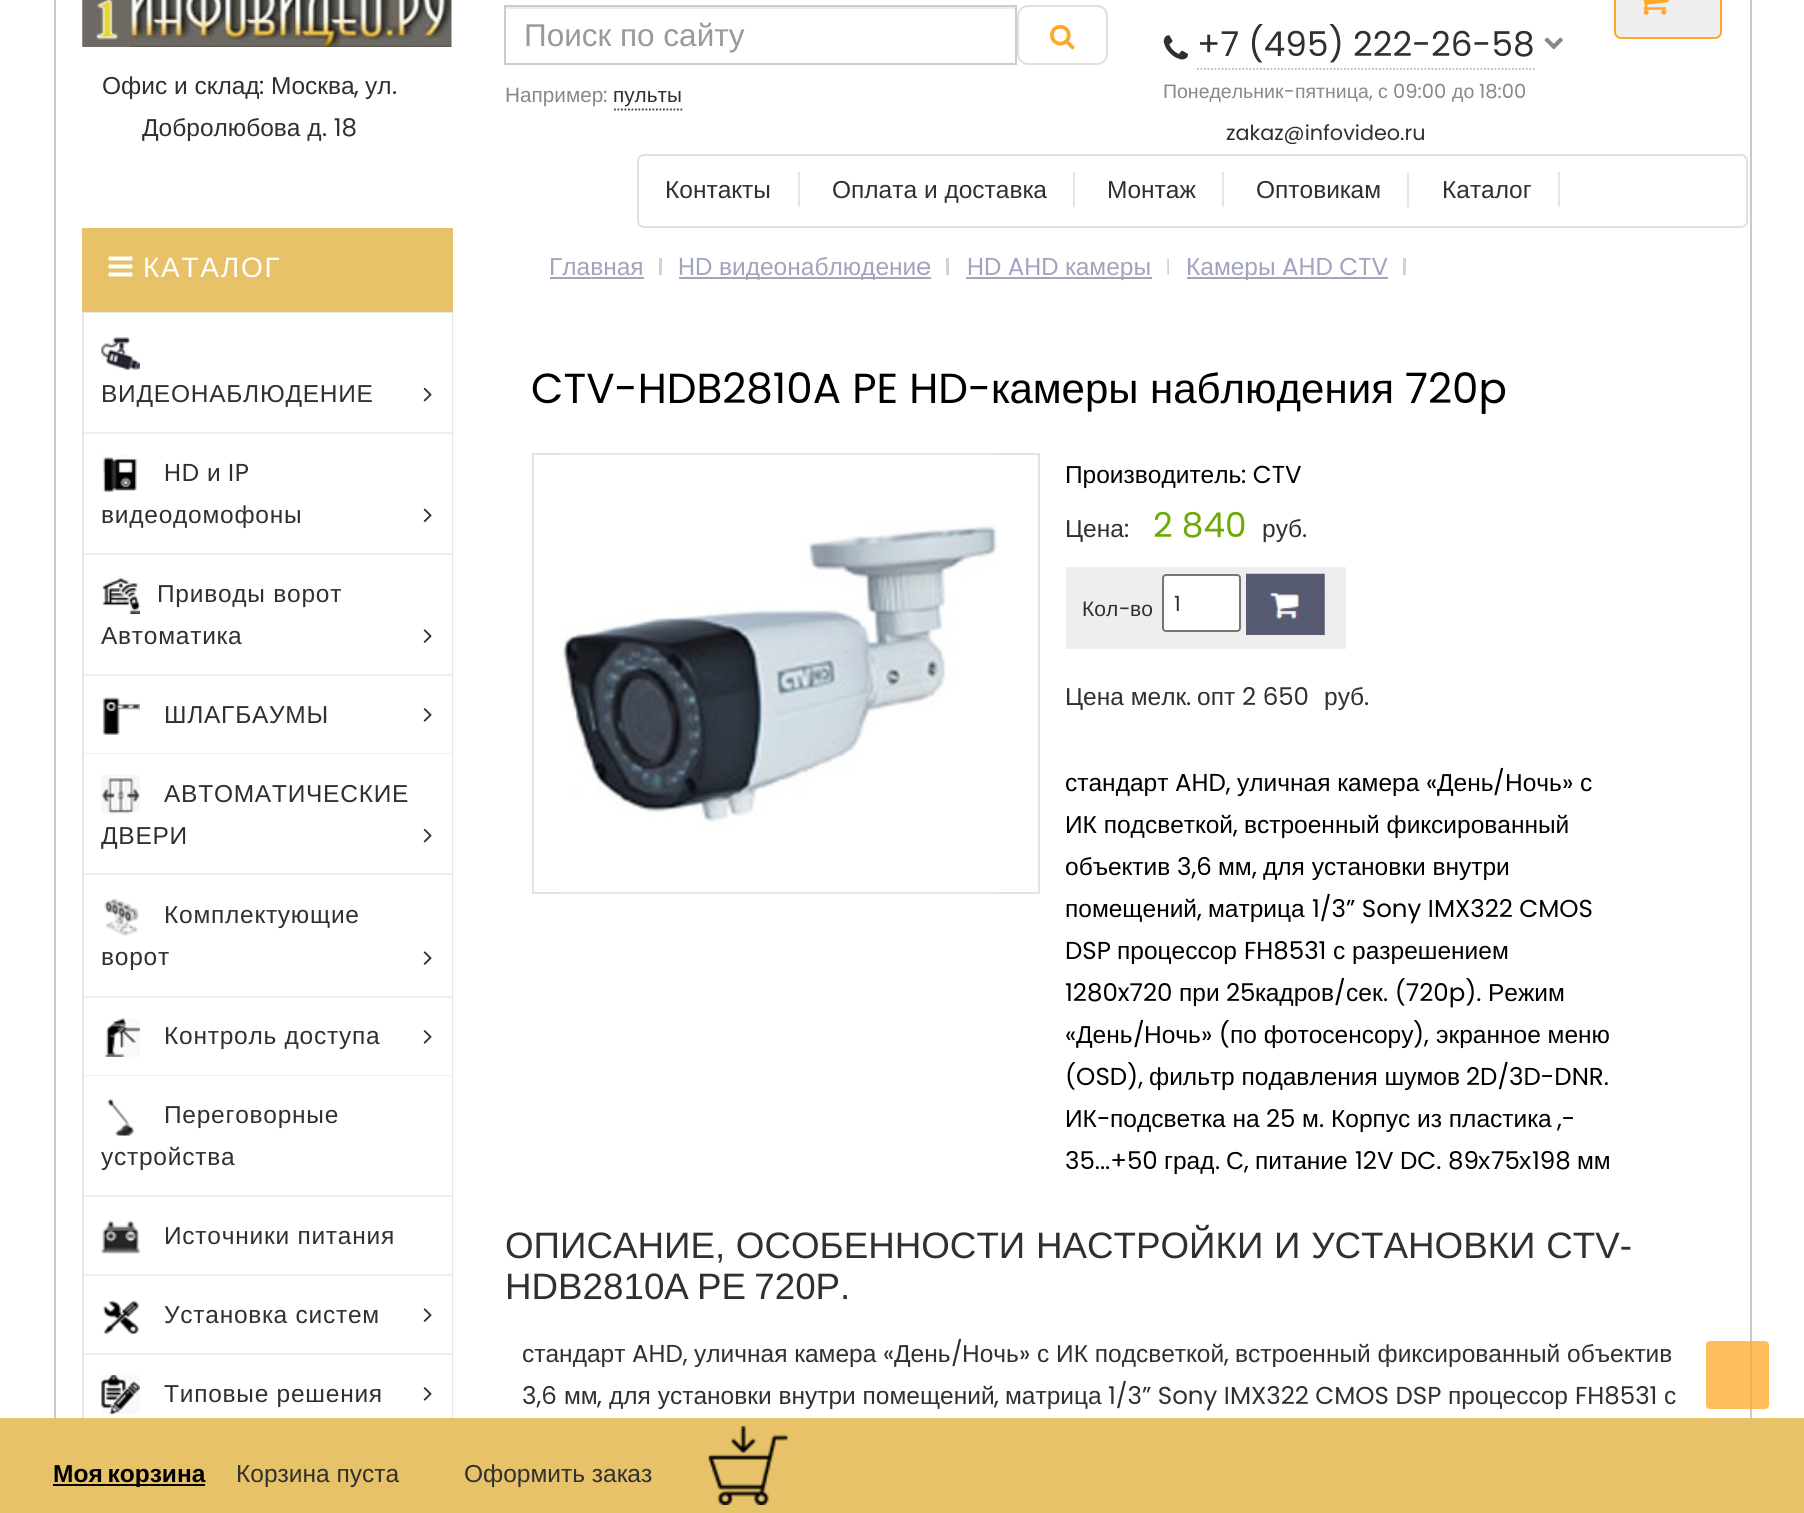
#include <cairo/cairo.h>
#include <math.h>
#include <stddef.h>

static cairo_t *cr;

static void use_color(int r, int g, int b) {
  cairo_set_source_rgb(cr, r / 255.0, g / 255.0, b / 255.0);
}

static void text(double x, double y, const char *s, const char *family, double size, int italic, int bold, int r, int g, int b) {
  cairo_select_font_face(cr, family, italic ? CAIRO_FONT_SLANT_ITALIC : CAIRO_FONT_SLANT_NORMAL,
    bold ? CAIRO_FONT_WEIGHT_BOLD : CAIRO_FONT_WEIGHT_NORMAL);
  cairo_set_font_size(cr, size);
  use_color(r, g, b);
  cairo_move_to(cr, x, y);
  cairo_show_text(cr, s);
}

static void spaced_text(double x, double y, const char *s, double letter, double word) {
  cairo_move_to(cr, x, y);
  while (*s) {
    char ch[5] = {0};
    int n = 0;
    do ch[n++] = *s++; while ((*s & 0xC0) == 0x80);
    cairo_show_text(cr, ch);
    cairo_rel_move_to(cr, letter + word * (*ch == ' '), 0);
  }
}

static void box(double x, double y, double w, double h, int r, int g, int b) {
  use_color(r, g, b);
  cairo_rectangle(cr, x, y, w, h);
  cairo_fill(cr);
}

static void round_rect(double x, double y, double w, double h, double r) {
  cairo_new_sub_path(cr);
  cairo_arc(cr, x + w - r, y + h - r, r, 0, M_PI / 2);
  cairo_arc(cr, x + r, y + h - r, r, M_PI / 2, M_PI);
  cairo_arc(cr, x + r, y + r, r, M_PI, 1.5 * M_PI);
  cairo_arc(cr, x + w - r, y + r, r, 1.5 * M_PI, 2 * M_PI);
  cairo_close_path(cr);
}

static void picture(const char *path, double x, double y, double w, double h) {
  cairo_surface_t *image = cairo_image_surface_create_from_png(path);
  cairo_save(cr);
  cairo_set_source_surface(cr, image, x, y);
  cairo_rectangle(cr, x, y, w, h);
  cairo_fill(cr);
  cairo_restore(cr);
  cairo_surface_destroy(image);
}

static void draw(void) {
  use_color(255, 255, 255);
  cairo_paint(cr);
  box(1750, 0, 2, 1418, 204, 200, 200);
  box(54, 0, 2, 1418, 204, 200, 200);
  use_color(239, 239, 239);
  round_rect(1615, -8, 106, 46, 6);
  cairo_fill_preserve(cr);
  use_color(255, 167, 38);
  cairo_stroke(cr);
  picture("img_01.png", 1643, 0, 26, 15);
  picture("img_02.png", 82, 0, 370, 47);
  box(506, 7, 509, 2, 236, 236, 236);
  cairo_rectangle(cr, 505, 6, 511, 58);
  use_color(204, 204, 204);
  cairo_stroke(cr);
  round_rect(1018, 6, 89, 58, 10);
  use_color(224, 224, 224);
  cairo_stroke(cr);
  picture("img_03.png", 1050, 24, 25, 26);
  cairo_new_path(cr);
  cairo_move_to(cr, 614, 109.5);
  cairo_line_to(cr, 682.5, 109.5);
  use_color(51, 51, 51);
  cairo_set_line_width(cr, 1.8);
  cairo_set_dash(cr, (double[]){1.75, 1.75}, 2, 0);
  cairo_stroke(cr);
  picture("img_04.png", 1163, 35, 25, 25);
  cairo_new_path(cr);
  cairo_move_to(cr, 1197, 69);
  cairo_line_to(cr, 1535, 69);
  use_color(187, 187, 187);
  cairo_stroke(cr);
  picture("img_05.png", 1544, 37, 19, 13);
  round_rect(638, 155, 1109, 72, 6);
  use_color(224, 224, 224);
  cairo_set_line_width(cr, 2);
  cairo_set_dash(cr, NULL, 0, 0);
  cairo_stroke(cr);
  box(798, 172, 2, 35, 230, 230, 230);
  box(1073, 172, 2, 35, 230, 230, 230);
  box(1222, 172, 2, 35, 230, 230, 230);
  box(1407, 172, 2, 35, 230, 230, 230);
  box(1558, 172, 2, 35, 230, 230, 230);
  box(82, 228, 371, 84, 232, 194, 105);
  picture("img_06.png", 108, 256, 25, 21);
  cairo_rectangle(cr, 83, 313, 369, 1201);
  use_color(230, 230, 230);
  cairo_stroke(cr);
  box(84, 432, 368, 2, 238, 238, 238);
  box(84, 313, 368, 119, 255, 255, 255);
  picture("img_07.png", 101, 337, 39, 34);
  picture("img_08.png", 423, 387, 9, 15);
  box(84, 553, 368, 2, 238, 238, 238);
  box(451, 434, 1, 119, 255, 255, 255);
  picture("img_09.png", 101, 455, 39, 38);
  picture("img_10.png", 423, 508, 9, 15);
  box(84, 674, 368, 2, 238, 238, 238);
  box(451, 555, 1, 119, 255, 255, 255);
  picture("img_11.png", 102, 578, 38, 36);
  picture("img_12.png", 423, 629, 9, 14);
  box(84, 753, 368, 1, 238, 238, 238);
  box(451, 676, 1, 77, 255, 255, 255);
  picture("img_13.png", 102, 697, 38, 38);
  picture("img_14.png", 423, 708, 9, 14);
  box(84, 873, 368, 2, 238, 238, 238);
  box(451, 754, 1, 119, 255, 255, 255);
  picture("img_15.png", 101, 775, 39, 39);
  picture("img_08.png", 423, 828, 9, 15);
  box(84, 996, 368, 2, 238, 238, 238);
  box(451, 875, 1, 121, 255, 255, 255);
  picture("img_16.png", 104, 898, 36, 38);
  picture("img_12.png", 423, 951, 9, 14);
  box(84, 1075, 368, 1, 238, 238, 238);
  box(451, 998, 1, 77, 255, 255, 255);
  picture("img_17.png", 104, 1018, 36, 39);
  picture("img_14.png", 423, 1030, 9, 14);
  box(84, 1195, 368, 2, 238, 238, 238);
  box(451, 1076, 1, 119, 255, 255, 255);
  picture("img_18.png", 107, 1098, 27, 38);
  box(84, 1274, 368, 2, 238, 238, 238);
  box(451, 1197, 1, 77, 255, 255, 255);
  picture("img_19.png", 101, 1220, 39, 34);
  box(84, 1353, 368, 2, 238, 238, 238);
  box(451, 1276, 1, 77, 255, 255, 255);
  picture("img_20.png", 103, 1301, 36, 34);
  picture("img_12.png", 423, 1308, 9, 14);
  box(451, 1355, 1, 63, 255, 255, 255);
  picture("img_21.png", 101, 1375, 39, 39);
  picture("img_14.png", 423, 1387, 9, 14);
  box(659, 258, 3, 17, 211, 211, 211);
  box(550, 277, 94, 2, 160, 164, 188);
  box(946, 258, 3, 17, 211, 211, 211);
  box(679, 277, 252, 2, 160, 164, 188);
  picture("img_22.png", 1167, 258, 2, 17);
  box(966, 277, 186, 2, 160, 164, 188);
  box(1403, 258, 3, 17, 211, 211, 211);
  box(1187, 277, 201, 2, 160, 164, 188);
  cairo_rectangle(cr, 533, 454, 506, 439);
  use_color(224, 227, 231);
  cairo_stroke(cr);
  picture("img_23.png", 560, 454, 438, 439);
  box(1066, 567, 280, 82, 238, 238, 238);
  use_color(255, 255, 255);
  round_rect(1163, 575, 77, 56, 3);
  cairo_fill_preserve(cr);
  use_color(118, 118, 118);
  cairo_stroke(cr);
  picture("img_24.png", 1246, 573, 79, 62);
  box(0, 1418, 1804, 95, 232, 194, 105);
  box(53, 1484, 152, 2, 0, 0, 0);
  picture("img_25.png", 708, 1426, 80, 79);
  cairo_set_source_rgba(cr, 1, 0.655, 0.149, 0.75);
  round_rect(1706, 1341, 63, 68, 4);
  cairo_fill(cr);
  text(102, 94, "Офис и склад", "Liberation Sans", 24.5, 0, 0, 48, 48, 48);
  text(259, 94, ":", "Poppins", 24.5, 0, 0, 48, 48, 48);
  text(271, 94, "Москва", "Liberation Sans", 24.5, 0, 0, 48, 48, 48);
  text(354, 94, ",", "Poppins", 24.5, 0, 0, 48, 48, 48);
  text(365, 94, "ул", "Liberation Sans", 24.5, 0, 0, 48, 48, 48);
  text(392, 94, ".", "Poppins", 24.5, 0, 0, 48, 48, 48);
  text(142, 136, "Добролюбова д", "Liberation Sans", 24.5, 0, 0, 48, 48, 48);
  text(322, 136, ". 18", "Poppins", 24.5, 0, 0, 48, 48, 48);
  text(524, 46, "Поиск по сайту", "Liberation Sans", 31.5, 0, 0, 153, 153, 153);
  text(505, 102, "Например", "Liberation Sans", 20.75, 0, 0, 136, 136, 136);
  text(603, 102, ":", "Poppins", 20.75, 0, 0, 136, 136, 136);
  text(613, 102, "пульты", "Liberation Sans", 20.75, 0, 0, 48, 48, 48);
  text(1197, 56, "+7 (495) 222-26-58", "Poppins", 34.25, 0, 0, 48, 48, 48);
  text(1163, 98, "Понедельник", "Liberation Sans", 19.5, 0, 0, 136, 136, 136);
  text(1284, 98, "-", "Poppins", 19.5, 0, 0, 136, 136, 136);
  text(1295, 98, "пятница", "Liberation Sans", 19.5, 0, 0, 136, 136, 136);
  text(1378, 98, "с", "Liberation Sans", 19.5, 0, 0, 136, 136, 136);
  text(1393, 98, "09:00", "Poppins", 19.5, 0, 0, 136, 136, 136);
  text(1452, 98, "до", "Liberation Sans", 19.5, 0, 0, 136, 136, 136);
  text(1479, 98, "18:00", "Poppins", 19.5, 0, 0, 136, 136, 136);
  text(1369, 98, ",", "Poppins", 19.5, 0, 0, 136, 136, 136);
  text(1226, 140, "zakaz@infovideo.ru", "Poppins", 20.75, 0, 0, 48, 48, 48);
  text(665, 198, "Контакты", "Liberation Sans", 24.5, 0, 0, 48, 48, 48);
  text(832, 198, "Оплата и доставка", "Liberation Sans", 24.5, 0, 0, 48, 48, 48);
  text(1107, 198, "Монтаж", "Liberation Sans", 24.5, 0, 0, 48, 48, 48);
  text(1256, 198, "Оптовикам", "Liberation Sans", 24.5, 0, 0, 48, 48, 48);
  text(1442, 198, "Каталог", "Liberation Sans", 24.5, 0, 0, 48, 48, 48);
  cairo_set_font_size(cr, 28);
  use_color(255, 255, 255);
  spaced_text(143, 277, "КАТАЛОГ", 1.75, 0);
  cairo_set_font_size(cr, 24.5);
  use_color(48, 48, 48);
  spaced_text(101, 402, "ВИДЕОНАБЛЮДЕНИЕ", 0.75, 0);
  cairo_select_font_face(cr, "Poppins", CAIRO_FONT_SLANT_NORMAL, CAIRO_FONT_WEIGHT_NORMAL);
  spaced_text(164, 481, "HD", 0.75, 0);
  cairo_select_font_face(cr, "Liberation Sans", CAIRO_FONT_SLANT_NORMAL, CAIRO_FONT_WEIGHT_NORMAL);
  spaced_text(207, 481, "и", 0.75, 0);
  cairo_select_font_face(cr, "Poppins", CAIRO_FONT_SLANT_NORMAL, CAIRO_FONT_WEIGHT_NORMAL);
  spaced_text(228, 481, "IP", 0.75, 0);
  cairo_select_font_face(cr, "Liberation Sans", CAIRO_FONT_SLANT_NORMAL, CAIRO_FONT_WEIGHT_NORMAL);
  spaced_text(101, 523, "видеодомофоны", 0.75, 0);
  spaced_text(157, 602, "Приводы ворот", 0.75, 0);
  spaced_text(101, 644, "Автоматика", 0.75, 0);
  spaced_text(164, 723, "ШЛАГБАУМЫ", 0.75, 0);
  spaced_text(164, 802, "АВТОМАТИЧЕСКИЕ", 0.75, 0);
  spaced_text(101, 844, "ДВЕРИ", 0.75, 0);
  spaced_text(164, 923, "Комплектующие", 0.75, 0);
  spaced_text(101, 965, "ворот", 0.75, 0);
  spaced_text(164, 1044, "Контроль доступа", 0.75, 0);
  spaced_text(164, 1123, "Переговорные", 0.75, 0);
  spaced_text(101, 1165, "устройства", 0.75, 0);
  spaced_text(164, 1244, "Источники питания", 0.75, 0);
  spaced_text(164, 1323, "Установка систем", 0.75, 0);
  spaced_text(164, 1402, "Типовые решения", 0.75, 0);
  text(549, 275, "Главная", "Liberation Sans", 24.5, 0, 0, 160, 164, 188);
  text(678, 275, "HD", "Poppins", 24.5, 0, 0, 160, 164, 188);
  text(719, 275, "видеонаблюдени", "Liberation Sans", 24.5, 0, 0, 160, 164, 188);
  text(916, 275, "e", "Poppins", 24.5, 0, 0, 160, 164, 188);
  text(967, 275, "HD AHD", "Poppins", 24.5, 0, 0, 160, 164, 188);
  text(1065, 275, "камеры", "Liberation Sans", 24.5, 0, 0, 160, 164, 188);
  text(1186, 275, "Камеры", "Liberation Sans", 24.5, 0, 0, 160, 164, 188);
  text(1282, 275, "AHD CTV", "Poppins", 24.5, 0, 0, 160, 164, 188);
  text(531, 403, "CTV-HDB2810A PE HD-", "Poppins", 42, 0, 0, 0, 0, 0);
  text(991, 403, "камеры", "Liberation Sans", 42, 0, 0, 0, 0, 0);
  text(1150, 403, "наблюдения", "Liberation Sans", 42, 0, 0, 0, 0, 0);
  text(1405, 403, "720p", "Poppins", 42, 0, 0, 0, 0, 0);
  text(1065, 483, "Производитель", "Liberation Sans", 24.5, 0, 0, 0, 0, 0);
  text(1241, 483, ": CTV", "Poppins", 24.5, 0, 0, 0, 0, 0);
  text(1065, 537, "Цена", "Liberation Sans", 24.5, 0, 0, 48, 48, 48);
  text(1124, 537, ":", "Poppins", 24.5, 0, 0, 48, 48, 48);
  text(1153, 537, "2 840", "Poppins", 34.25, 0, 0, 111, 169, 7);
  text(1262, 537, "руб", "Liberation Sans", 24.5, 0, 0, 48, 48, 48);
  text(1302, 537, ".", "Poppins", 24.5, 0, 0, 48, 48, 48);
  text(1082, 616, "Кол", "Liberation Sans", 21, 0, 0, 48, 48, 48);
  text(1119, 616, "-", "Poppins", 21, 0, 0, 48, 48, 48);
  text(1130, 616, "во", "Liberation Sans", 21, 0, 0, 48, 48, 48);
  text(1174, 611, "1", "Poppins", 21, 0, 0, 48, 48, 48);
  text(1065, 705, "Цена мелк", "Liberation Sans", 24.5, 0, 0, 48, 48, 48);
  text(1186, 705, ".", "Poppins", 24.5, 0, 0, 48, 48, 48);
  text(1197, 705, "опт", "Liberation Sans", 24.5, 0, 0, 48, 48, 48);
  text(1242, 705, "2 650", "Poppins", 24.5, 0, 0, 48, 48, 48);
  text(1324, 705, "руб", "Liberation Sans", 24.5, 0, 0, 48, 48, 48);
  text(1364, 705, ".", "Poppins", 24.5, 0, 0, 48, 48, 48);
  text(1065, 791, "стандарт", "Liberation Sans", 24.5, 0, 0, 0, 0, 0);
  text(1175, 791, "AHD,", "Poppins", 24.5, 0, 0, 0, 0, 0);
  text(1237, 791, "уличная камера", "Liberation Sans", 24.5, 0, 0, 0, 0, 0);
  text(1426, 791, "«", "Poppins", 24.5, 0, 0, 0, 0, 0);
  text(1437, 791, "День", "Liberation Sans", 24.5, 0, 0, 0, 0, 0);
  text(1493, 791, "/", "Poppins", 24.5, 0, 0, 0, 0, 0);
  text(1505, 791, "Ночь", "Liberation Sans", 24.5, 0, 0, 0, 0, 0);
  text(1562, 791, "»", "Poppins", 24.5, 0, 0, 0, 0, 0);
  text(1580, 791, "с", "Liberation Sans", 24.5, 0, 0, 0, 0, 0);
  text(1065, 833, "ИК подсветкой", "Liberation Sans", 24.5, 0, 0, 0, 0, 0);
  text(1233, 833, ",", "Poppins", 24.5, 0, 0, 0, 0, 0);
  text(1244, 833, "встроенный фиксированный", "Liberation Sans", 24.5, 0, 0, 0, 0, 0);
  text(1065, 875, "объектив", "Liberation Sans", 24.5, 0, 0, 0, 0, 0);
  text(1177, 875, "3,6", "Poppins", 24.5, 0, 0, 0, 0, 0);
  text(1218, 875, "мм", "Liberation Sans", 24.5, 0, 0, 0, 0, 0);
  text(1252, 875, ",", "Poppins", 24.5, 0, 0, 0, 0, 0);
  text(1263, 875, "для установки внутри", "Liberation Sans", 24.5, 0, 0, 0, 0, 0);
  text(1065, 917, "помещений", "Liberation Sans", 24.5, 0, 0, 0, 0, 0);
  text(1197, 917, ",", "Poppins", 24.5, 0, 0, 0, 0, 0);
  text(1208, 917, "матрица", "Liberation Sans", 24.5, 0, 0, 0, 0, 0);
  text(1312, 917, "1/3” Sony IMX322 CMOS", "Poppins", 24.5, 0, 0, 0, 0, 0);
  text(1065, 959, "DSP", "Poppins", 24.5, 0, 0, 0, 0, 0);
  text(1117, 959, "процессор", "Liberation Sans", 24.5, 0, 0, 0, 0, 0);
  text(1244, 959, "FH8531", "Poppins", 24.5, 0, 0, 0, 0, 0);
  text(1333, 959, "с разрешением", "Liberation Sans", 24.5, 0, 0, 0, 0, 0);
  text(1065, 1001, "1280x720", "Poppins", 24.5, 0, 0, 0, 0, 0);
  text(1179, 1001, "при", "Liberation Sans", 24.5, 0, 0, 0, 0, 0);
  text(1226, 1001, "25", "Poppins", 24.5, 0, 0, 0, 0, 0);
  text(1255, 1001, "кадров", "Liberation Sans", 24.5, 0, 0, 0, 0, 0);
  text(1334, 1001, "/", "Poppins", 24.5, 0, 0, 0, 0, 0);
  text(1346, 1001, "сек", "Liberation Sans", 24.5, 0, 0, 0, 0, 0);
  text(1383, 1001, ". (720p).", "Poppins", 24.5, 0, 0, 0, 0, 0);
  text(1488, 1001, "Режим", "Liberation Sans", 24.5, 0, 0, 0, 0, 0);
  text(1065, 1043, "«", "Poppins", 24.5, 0, 0, 0, 0, 0);
  text(1076, 1043, "День", "Liberation Sans", 24.5, 0, 0, 0, 0, 0);
  text(1133, 1043, "/", "Poppins", 24.5, 0, 0, 0, 0, 0);
  text(1144, 1043, "Ночь", "Liberation Sans", 24.5, 0, 0, 0, 0, 0);
  text(1201, 1043, "» (", "Poppins", 24.5, 0, 0, 0, 0, 0);
  text(1230, 1043, "по фотосенсору", "Liberation Sans", 24.5, 0, 0, 0, 0, 0);
  text(1413, 1043, "),", "Poppins", 24.5, 0, 0, 0, 0, 0);
  text(1436, 1043, "экранное меню", "Liberation Sans", 24.5, 0, 0, 0, 0, 0);
  text(1065, 1085, "(OSD),", "Poppins", 24.5, 0, 0, 0, 0, 0);
  text(1149, 1085, "фильтр подавления шумов", "Liberation Sans", 24.5, 0, 0, 0, 0, 0);
  text(1466, 1085, "2D/3D-DNR.", "Poppins", 24.5, 0, 0, 0, 0, 0);
  text(1065, 1127, "ИК", "Liberation Sans", 24.5, 0, 0, 0, 0, 0);
  text(1097, 1127, "-", "Poppins", 24.5, 0, 0, 0, 0, 0);
  text(1110, 1127, "подсветка на", "Liberation Sans", 24.5, 0, 0, 0, 0, 0);
  text(1266, 1127, "25", "Poppins", 24.5, 0, 0, 0, 0, 0);
  text(1302, 1127, "м", "Liberation Sans", 24.5, 0, 0, 0, 0, 0);
  text(1319, 1127, ".", "Poppins", 24.5, 0, 0, 0, 0, 0);
  text(1331, 1127, "Корпус из пластика", "Liberation Sans", 24.5, 0, 0, 0, 0, 0);
  text(1557, 1127, ",-", "Poppins", 24.5, 0, 0, 0, 0, 0);
  text(1065, 1169, "35...+50", "Poppins", 24.5, 0, 0, 0, 0, 0);
  text(1164, 1169, "град", "Liberation Sans", 24.5, 0, 0, 0, 0, 0);
  text(1215, 1169, ".", "Poppins", 24.5, 0, 0, 0, 0, 0);
  text(1226, 1169, "С", "Liberation Sans", 24.5, 0, 0, 0, 0, 0);
  text(1244, 1169, ",", "Poppins", 24.5, 0, 0, 0, 0, 0);
  text(1255, 1169, "питание", "Liberation Sans", 24.5, 0, 0, 0, 0, 0);
  text(1355, 1169, "12V DC. 89", "Poppins", 24.5, 0, 0, 0, 0, 0);
  text(1478, 1169, "х", "Liberation Sans", 24.5, 0, 0, 0, 0, 0);
  text(1491, 1169, "75", "Poppins", 24.5, 0, 0, 0, 0, 0);
  text(1519, 1169, "х", "Liberation Sans", 24.5, 0, 0, 0, 0, 0);
  text(1532, 1169, "198", "Poppins", 24.5, 0, 0, 0, 0, 0);
  text(1577, 1169, "мм", "Liberation Sans", 24.5, 0, 0, 0, 0, 0);
  cairo_set_font_size(cr, 36.75);
  use_color(48, 48, 48);
  spaced_text(505, 1258, "ОПИСАНИЕ, ОСОБЕННОСТИ НАСТРОЙКИ И УСТАНОВКИ CTV-", 0, 0.5);
  spaced_text(505, 1299, "HDB2810A PE 720P.", 0, -2);
  text(522, 1362, "стандарт", "Liberation Sans", 24.5, 0, 0, 48, 48, 48);
  text(632, 1362, "AHD,", "Poppins", 24.5, 0, 0, 48, 48, 48);
  text(694, 1362, "уличная камера", "Liberation Sans", 24.5, 0, 0, 48, 48, 48);
  text(883, 1362, "«", "Poppins", 24.5, 0, 0, 48, 48, 48);
  text(894, 1362, "День", "Liberation Sans", 24.5, 0, 0, 48, 48, 48);
  text(951, 1362, "/", "Poppins", 24.5, 0, 0, 48, 48, 48);
  text(962, 1362, "Ночь", "Liberation Sans", 24.5, 0, 0, 48, 48, 48);
  text(1019, 1362, "»", "Poppins", 24.5, 0, 0, 48, 48, 48);
  text(1037, 1362, "с ИК подсветкой", "Liberation Sans", 24.5, 0, 0, 48, 48, 48);
  text(1235, 1362, "встроенный фиксированный объектив", "Liberation Sans", 24.5, 0, 0, 48, 48, 48);
  text(1224, 1362, ",", "Poppins", 24.5, 0, 0, 48, 48, 48);
  text(522, 1404, "3,6", "Poppins", 24.5, 0, 0, 48, 48, 48);
  text(564, 1404, "мм", "Liberation Sans", 24.5, 0, 0, 48, 48, 48);
  text(597, 1404, ",", "Poppins", 24.5, 0, 0, 48, 48, 48);
  text(609, 1404, "для установки внутри помещений", "Liberation Sans", 24.5, 0, 0, 48, 48, 48);
  text(994, 1404, ",", "Poppins", 24.5, 0, 0, 48, 48, 48);
  text(1005, 1404, "матрица", "Liberation Sans", 24.5, 0, 0, 48, 48, 48);
  text(1108, 1404, "1/3” Sony IMX322 CMOS DSP", "Poppins", 24.5, 0, 0, 48, 48, 48);
  text(1448, 1404, "процессор", "Liberation Sans", 24.5, 0, 0, 48, 48, 48);
  text(1575, 1404, "FH8531", "Poppins", 24.5, 0, 0, 48, 48, 48);
  text(1664, 1404, "с", "Liberation Sans", 24.5, 0, 0, 48, 48, 48);
  cairo_select_font_face(cr, "Liberation Sans", CAIRO_FONT_SLANT_NORMAL, CAIRO_FONT_WEIGHT_BOLD);
  use_color(0, 0, 0);
  spaced_text(53, 1482, "Моя корзина", 0, -2);
  text(236, 1482, "Корзина пуста", "Liberation Sans", 24.5, 0, 0, 48, 48, 48);
  text(464, 1482, "Оформить заказ", "Liberation Sans", 24.5, 0, 0, 48, 48, 48);
}

int main(void) {
  cairo_surface_t *surface = cairo_image_surface_create(CAIRO_FORMAT_RGB24, 1804, 1513);
  cr = cairo_create(surface);
  cairo_font_options_t *options = cairo_font_options_create();
  cairo_font_options_set_hint_metrics(options, CAIRO_HINT_METRICS_OFF);
  cairo_font_options_set_hint_style(options, CAIRO_HINT_STYLE_NONE);
  cairo_set_font_options(cr, options);
  cairo_set_miter_limit(cr, 4);
  draw();
  cairo_surface_write_to_png(surface, "out.png");
  cairo_font_options_destroy(options);
  cairo_destroy(cr);
  cairo_surface_destroy(surface);
  return 0;
}
